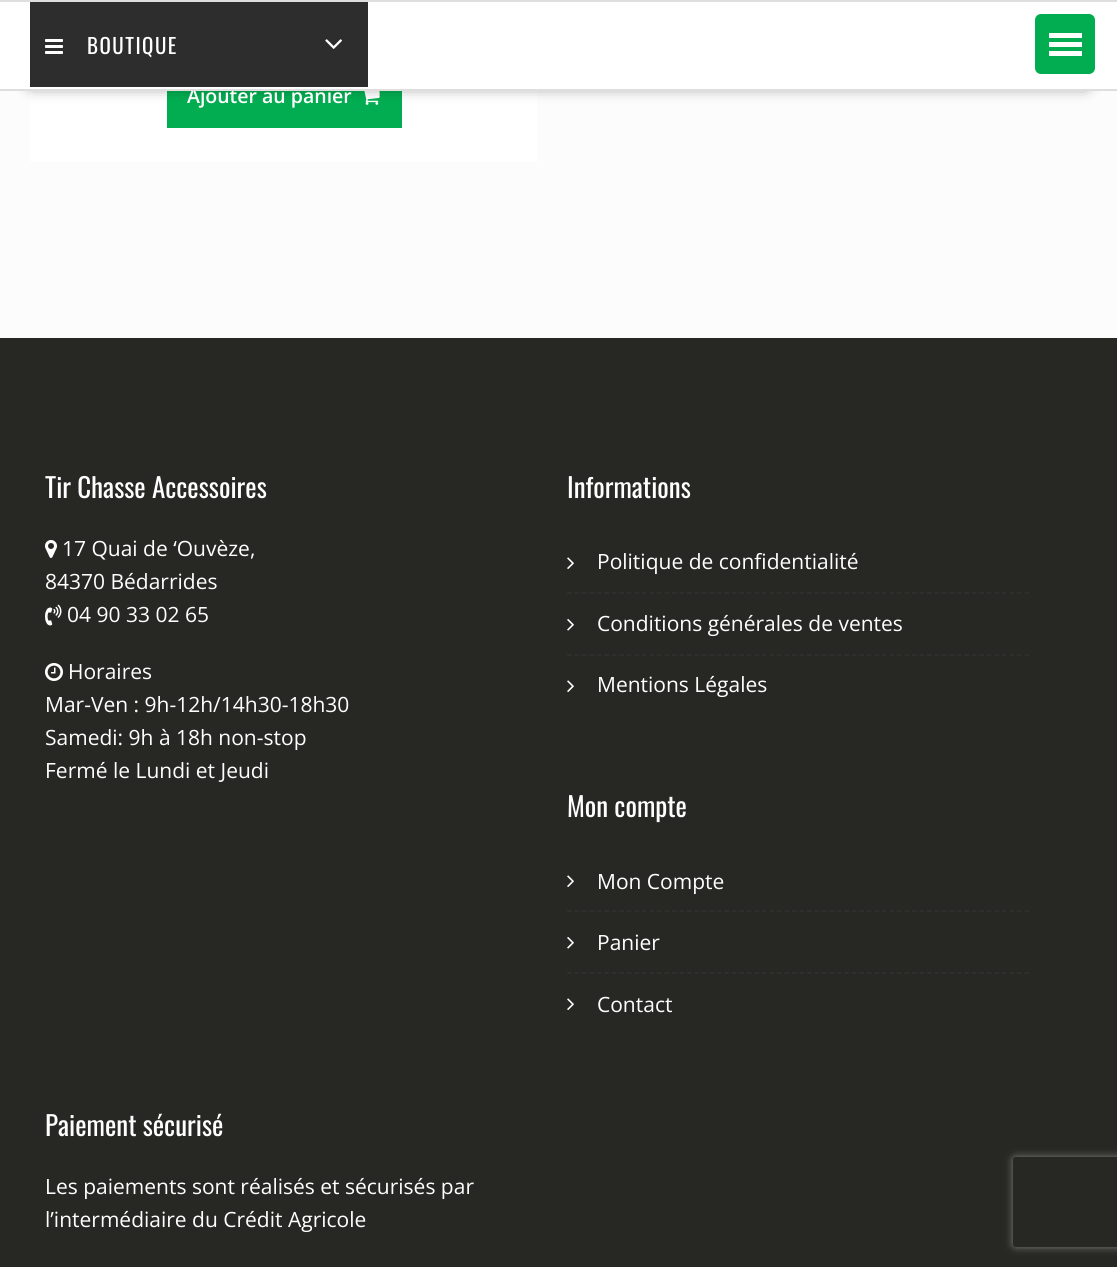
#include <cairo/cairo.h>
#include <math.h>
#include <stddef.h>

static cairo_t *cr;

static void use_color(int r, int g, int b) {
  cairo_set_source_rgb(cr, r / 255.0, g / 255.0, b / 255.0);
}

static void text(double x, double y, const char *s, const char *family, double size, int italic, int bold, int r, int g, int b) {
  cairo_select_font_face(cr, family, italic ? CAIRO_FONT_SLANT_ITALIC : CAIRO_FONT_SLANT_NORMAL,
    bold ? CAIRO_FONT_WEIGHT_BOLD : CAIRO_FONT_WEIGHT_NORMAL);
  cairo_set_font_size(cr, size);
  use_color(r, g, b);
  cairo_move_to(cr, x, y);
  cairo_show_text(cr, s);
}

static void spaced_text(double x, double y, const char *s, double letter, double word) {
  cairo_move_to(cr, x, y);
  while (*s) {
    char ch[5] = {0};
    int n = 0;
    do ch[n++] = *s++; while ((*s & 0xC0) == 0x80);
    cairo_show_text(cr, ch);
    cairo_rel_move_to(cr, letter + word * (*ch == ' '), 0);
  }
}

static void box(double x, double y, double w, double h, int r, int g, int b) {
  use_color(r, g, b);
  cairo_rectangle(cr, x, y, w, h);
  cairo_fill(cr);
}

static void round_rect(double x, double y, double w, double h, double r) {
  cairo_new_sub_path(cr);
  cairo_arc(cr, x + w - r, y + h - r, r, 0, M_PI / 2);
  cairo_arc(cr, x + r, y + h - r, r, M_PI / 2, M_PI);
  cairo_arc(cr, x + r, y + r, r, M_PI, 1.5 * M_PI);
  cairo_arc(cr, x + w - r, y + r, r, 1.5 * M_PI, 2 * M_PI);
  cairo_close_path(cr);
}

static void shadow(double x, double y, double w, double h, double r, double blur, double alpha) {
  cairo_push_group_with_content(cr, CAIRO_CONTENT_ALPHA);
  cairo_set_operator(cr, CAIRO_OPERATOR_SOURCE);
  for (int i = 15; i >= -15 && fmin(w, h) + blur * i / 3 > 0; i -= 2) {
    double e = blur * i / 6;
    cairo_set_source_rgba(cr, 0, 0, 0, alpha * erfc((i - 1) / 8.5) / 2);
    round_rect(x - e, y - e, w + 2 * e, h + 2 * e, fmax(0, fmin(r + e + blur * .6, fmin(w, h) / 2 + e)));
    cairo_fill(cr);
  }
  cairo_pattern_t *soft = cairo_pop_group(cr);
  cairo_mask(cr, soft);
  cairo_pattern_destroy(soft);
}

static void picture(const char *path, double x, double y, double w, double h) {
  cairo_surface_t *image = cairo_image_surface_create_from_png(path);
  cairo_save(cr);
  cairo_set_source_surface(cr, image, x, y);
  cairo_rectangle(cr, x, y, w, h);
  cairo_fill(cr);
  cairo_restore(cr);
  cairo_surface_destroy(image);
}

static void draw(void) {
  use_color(252, 252, 252);
  cairo_paint(cr);
  box(30, 91, 507, 71, 255, 255, 255);
  box(167, 91, 235, 37, 2, 173, 81);
  picture("img_03.png", 364, 91, 16, 14);
  use_color(0, 0, 0);
  shadow(32, 57, 1054, 27, 0, 8, 0.75);
  box(0, 2, 1117, 87, 255, 255, 255);
  box(0, 0, 1117, 2, 222, 222, 222);
  box(30, 2, 338, 85, 45, 45, 45);
  picture("img_01.png", 45, 39, 18, 15);
  picture("img_02.png", 325, 39, 17, 10);
  use_color(2, 173, 81);
  round_rect(1036, 15, 58, 58, 5);
  cairo_fill_preserve(cr);
  cairo_stroke(cr);
  box(1049, 51, 33, 5, 255, 255, 255);
  box(1049, 42, 33, 5, 255, 255, 255);
  box(1049, 33, 33, 5, 255, 255, 255);
  box(0, 338, 1117, 929, 39, 40, 35);
  picture("img_04.png", 45, 540, 12, 18);
  picture("img_05.png", 45, 604, 17, 22);
  picture("img_06.png", 45, 663, 18, 18);
  picture("img_07.png", 567, 557, 7, 12);
  cairo_new_path(cr);
  cairo_move_to(cr, 567, 593);
  cairo_line_to(cr, 1029, 593);
  use_color(48, 48, 48);
  cairo_set_line_width(cr, 1.5);
  cairo_set_dash(cr, (double[]){4.5, 3}, 2, 0);
  cairo_stroke(cr);
  picture("img_08.png", 567, 619, 7, 12);
  cairo_new_path(cr);
  cairo_move_to(cr, 567, 655);
  cairo_line_to(cr, 1029, 655);
  cairo_stroke(cr);
  picture("img_07.png", 567, 680, 7, 12);
  picture("img_07.png", 567, 875, 7, 12);
  cairo_new_path(cr);
  cairo_move_to(cr, 567, 911);
  cairo_line_to(cr, 1029, 911);
  cairo_stroke(cr);
  picture("img_08.png", 567, 937, 7, 12);
  cairo_new_path(cr);
  cairo_move_to(cr, 567, 973);
  cairo_line_to(cr, 1029, 973);
  cairo_stroke(cr);
  picture("img_07.png", 567, 998, 7, 12);
  cairo_save(cr);
  cairo_set_fill_rule(cr, CAIRO_FILL_RULE_EVEN_ODD);
  cairo_new_path(cr);
  cairo_move_to(cr, 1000, 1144);
  cairo_line_to(cr, 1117, 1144);
  cairo_line_to(cr, 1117, 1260);
  cairo_line_to(cr, 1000, 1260);
  cairo_close_path(cr);
  cairo_move_to(cr, 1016, 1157);
  cairo_line_to(cr, 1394, 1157);
  cairo_curve_to(cr, 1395.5, 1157, 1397, 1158.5, 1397, 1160);
  cairo_line_to(cr, 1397, 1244);
  cairo_curve_to(cr, 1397, 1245.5, 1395.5, 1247, 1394, 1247);
  cairo_line_to(cr, 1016, 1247);
  cairo_curve_to(cr, 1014.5, 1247, 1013, 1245.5, 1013, 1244);
  cairo_line_to(cr, 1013, 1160);
  cairo_curve_to(cr, 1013, 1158.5, 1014.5, 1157, 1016, 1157);
  cairo_close_path(cr);
  cairo_clip(cr);
  use_color(128, 128, 128);
  shadow(1013, 1157, 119, 90, 3, 4, 1);
  cairo_restore(cr);
  cairo_select_font_face(cr, "Oswald", CAIRO_FONT_SLANT_NORMAL, CAIRO_FONT_WEIGHT_NORMAL);
  cairo_set_font_size(cr, 21);
  use_color(255, 255, 255);
  spaced_text(87, 54, "BOUTIQUE", 1.5, 0);
  text(187, 103, "Ajouter au panier", "Open Sans SemiBold", 19.5, 0, 0, 255, 255, 255);
  box(0, 89, 1117, 2, 222, 222, 222);
  text(45, 498, "Tir Chasse Accessoires", "Oswald", 27, 0, 0, 255, 255, 255);
  text(62, 556, "17 Quai de ‘Ouvèze,", "Open Sans", 21, 0, 0, 255, 255, 255);
  text(45, 589, "84370 Bédarrides", "Open Sans", 21, 0, 0, 255, 255, 255);
  text(67, 622, "04 90 33 02 65", "Open Sans", 21, 0, 0, 255, 255, 255);
  text(68, 679, "Horaires", "Open Sans", 21, 0, 0, 255, 255, 255);
  text(45, 712, "Mar-Ven : 9h-12h/14h30-18h30", "Open Sans", 21, 0, 0, 255, 255, 255);
  text(45, 745, "Samedi: 9h à 18h non-stop", "Open Sans", 21, 0, 0, 255, 255, 255);
  text(45, 778, "Fermé le Lundi et Jeudi", "Open Sans", 21, 0, 0, 255, 255, 255);
  text(567, 498, "Informations", "Oswald", 27, 0, 0, 255, 255, 255);
  text(597, 569, "Politique de confidentialité", "Open Sans", 21, 0, 0, 255, 255, 255);
  text(597, 631, "Conditions générales de ventes", "Open Sans", 21, 0, 0, 255, 255, 255);
  text(597, 692, "Mentions Légales", "Open Sans", 21, 0, 0, 255, 255, 255);
  text(567, 817, "Mon compte", "Oswald", 27, 0, 0, 255, 255, 255);
  text(597, 889, "Mon Compte", "Open Sans", 21, 0, 0, 255, 255, 255);
  text(597, 950, "Panier", "Open Sans", 21, 0, 0, 255, 255, 255);
  text(597, 1012, "Contact", "Open Sans", 21, 0, 0, 255, 255, 255);
  text(45, 1136, "Paiement sécurisé", "Oswald", 27, 0, 0, 255, 255, 255);
  text(45, 1194, "Les paiements sont réalisés et sécurisés par", "Open Sans", 21, 0, 0, 255, 255, 255);
  text(45, 1227, "l’intermédiaire du Crédit Agricole", "Open Sans", 21, 0, 0, 255, 255, 255);
}

int main(void) {
  cairo_surface_t *surface = cairo_image_surface_create(CAIRO_FORMAT_RGB24, 1117, 1267);
  cr = cairo_create(surface);
  cairo_font_options_t *options = cairo_font_options_create();
  cairo_font_options_set_hint_metrics(options, CAIRO_HINT_METRICS_OFF);
  cairo_font_options_set_hint_style(options, CAIRO_HINT_STYLE_NONE);
  cairo_set_font_options(cr, options);
  cairo_set_miter_limit(cr, 4);
  draw();
  cairo_surface_write_to_png(surface, "out.png");
  cairo_font_options_destroy(options);
  cairo_destroy(cr);
  cairo_surface_destroy(surface);
  return 0;
}
